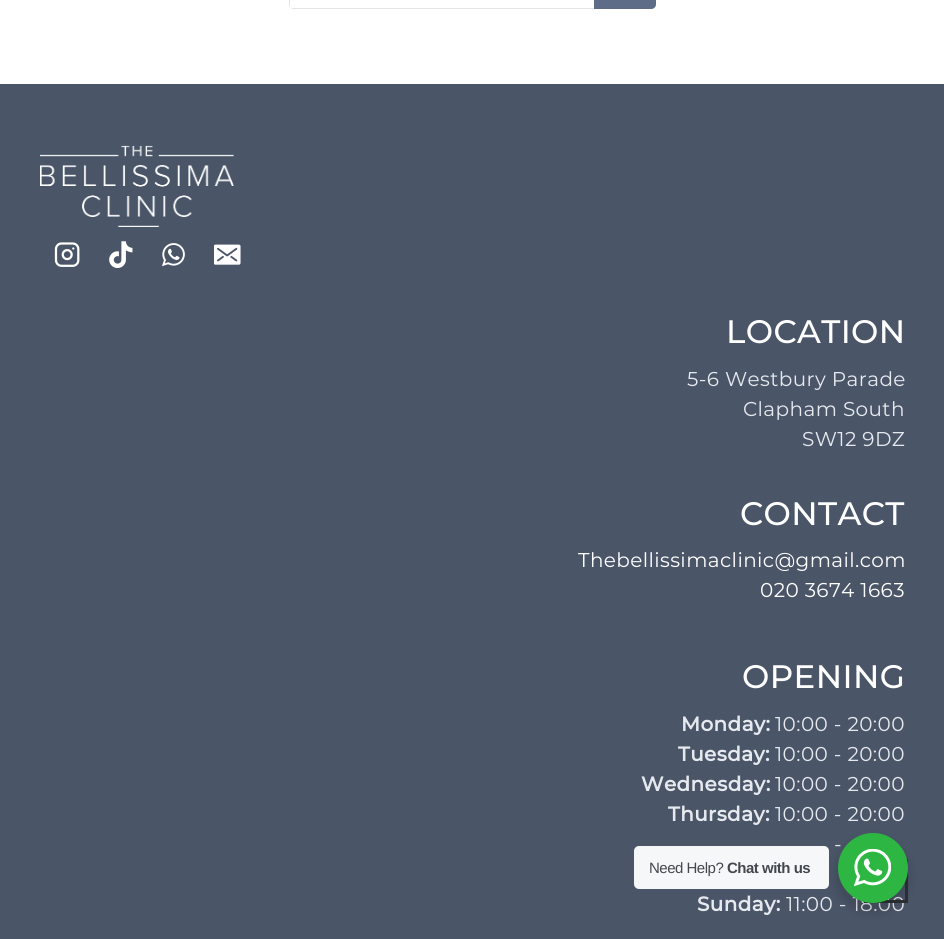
#include <cairo/cairo.h>
#include <math.h>
#include <stddef.h>

static cairo_t *cr;

static void use_color(int r, int g, int b) {
  cairo_set_source_rgb(cr, r / 255.0, g / 255.0, b / 255.0);
}

static void spaced_text(double x, double y, const char *s, double letter, double word) {
  cairo_move_to(cr, x, y);
  while (*s) {
    char ch[5] = {0};
    int n = 0;
    do ch[n++] = *s++; while ((*s & 0xC0) == 0x80);
    cairo_show_text(cr, ch);
    cairo_rel_move_to(cr, letter + word * (*ch == ' '), 0);
  }
}

static void box(double x, double y, double w, double h, int r, int g, int b) {
  use_color(r, g, b);
  cairo_rectangle(cr, x, y, w, h);
  cairo_fill(cr);
}

static void round_rect(double x, double y, double w, double h, double r) {
  cairo_new_sub_path(cr);
  cairo_arc(cr, x + w - r, y + h - r, r, 0, M_PI / 2);
  cairo_arc(cr, x + r, y + h - r, r, M_PI / 2, M_PI);
  cairo_arc(cr, x + r, y + r, r, M_PI, 1.5 * M_PI);
  cairo_arc(cr, x + w - r, y + r, r, 1.5 * M_PI, 2 * M_PI);
  cairo_close_path(cr);
}

static void shadow(double x, double y, double w, double h, double r, double blur, double alpha) {
  cairo_push_group_with_content(cr, CAIRO_CONTENT_ALPHA);
  cairo_set_operator(cr, CAIRO_OPERATOR_SOURCE);
  for (int i = 15; i >= -15 && fmin(w, h) + blur * i / 3 > 0; i -= 2) {
    double e = blur * i / 6;
    cairo_set_source_rgba(cr, 0, 0, 0, alpha * erfc((i - 1) / 8.5) / 2);
    round_rect(x - e, y - e, w + 2 * e, h + 2 * e, fmax(0, fmin(r + e + blur * .6, fmin(w, h) / 2 + e)));
    cairo_fill(cr);
  }
  cairo_pattern_t *soft = cairo_pop_group(cr);
  cairo_mask(cr, soft);
  cairo_pattern_destroy(soft);
}

static void picture(const char *path, double x, double y, double w, double h) {
  cairo_surface_t *image = cairo_image_surface_create_from_png(path);
  cairo_save(cr);
  cairo_set_source_surface(cr, image, x, y);
  cairo_rectangle(cr, x, y, w, h);
  cairo_fill(cr);
  cairo_restore(cr);
  cairo_surface_destroy(image);
}

static void draw(void) {
  use_color(255, 255, 255);
  cairo_paint(cr);
  use_color(229, 229, 229);
  cairo_set_fill_rule(cr, CAIRO_FILL_RULE_EVEN_ODD);
  cairo_new_path(cr);
  cairo_move_to(cr, 289, -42);
  cairo_line_to(cr, 289, 4);
  cairo_curve_to(cr, 289, 5, 289, 6, 290, 7);
  cairo_line_to(cr, 290, -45);
  cairo_close_path(cr);
  cairo_move_to(cr, 294, -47);
  cairo_line_to(cr, 291, -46);
  cairo_line_to(cr, 654, -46);
  cairo_line_to(cr, 651, -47);
  cairo_close_path(cr);
  cairo_move_to(cr, 656, -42);
  cairo_line_to(cr, 655, -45);
  cairo_line_to(cr, 655, 7);
  cairo_curve_to(cr, 656, 6, 656, 5, 656, 4);
  cairo_close_path(cr);
  cairo_move_to(cr, 651, 9);
  cairo_line_to(cr, 654, 8);
  cairo_line_to(cr, 291, 8);
  cairo_curve_to(cr, 292, 9, 293, 9, 294, 9);
  cairo_close_path(cr);
  cairo_fill(cr);
  use_color(95, 108, 136);
  cairo_new_path(cr);
  cairo_move_to(cr, 594, -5);
  cairo_line_to(cr, 651, -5);
  cairo_curve_to(cr, 654, -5, 656, -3, 656, 0);
  cairo_line_to(cr, 656, 4);
  cairo_curve_to(cr, 656, 7, 654, 9, 651, 9);
  cairo_line_to(cr, 594, 9);
  cairo_close_path(cr);
  cairo_fill(cr);
  box(0, 84, 944, 855, 74, 85, 104);
  picture("img_01.png", 40, 145, 194, 82);
  picture("img_02.png", 54, 242, 26, 25);
  picture("img_03.png", 109, 241, 24, 27);
  picture("img_04.png", 162, 243, 23, 24);
  picture("img_05.png", 214, 244, 27, 21);
  cairo_select_font_face(cr, "Montserrat Medium", CAIRO_FONT_SLANT_NORMAL, CAIRO_FONT_WEIGHT_NORMAL);
  cairo_set_font_size(cr, 32.5);
  use_color(255, 255, 255);
  spaced_text(726, 343, "LOCATION", 0.4, 0);
  cairo_select_font_face(cr, "Montserrat", CAIRO_FONT_SLANT_NORMAL, CAIRO_FONT_WEIGHT_NORMAL);
  cairo_set_font_size(cr, 20);
  use_color(230, 233, 238);
  spaced_text(687, 386, "5-6 Westbury Parade", 0.4, 0);
  spaced_text(743, 416, "Clapham South", 0.4, 0);
  spaced_text(802, 446, "SW12 9DZ", 0.4, 0);
  cairo_select_font_face(cr, "Montserrat Medium", CAIRO_FONT_SLANT_NORMAL, CAIRO_FONT_WEIGHT_NORMAL);
  cairo_set_font_size(cr, 32.5);
  use_color(255, 255, 255);
  spaced_text(740, 525, "CONTACT", 0.4, 0);
  cairo_select_font_face(cr, "Montserrat", CAIRO_FONT_SLANT_NORMAL, CAIRO_FONT_WEIGHT_NORMAL);
  cairo_set_font_size(cr, 20);
  spaced_text(578, 567, "Thebellissimaclinic@gmail.com", 0.4, 0);
  spaced_text(760, 597, "020 3674 1663", 0.4, 0);
  cairo_select_font_face(cr, "Montserrat Medium", CAIRO_FONT_SLANT_NORMAL, CAIRO_FONT_WEIGHT_NORMAL);
  cairo_set_font_size(cr, 32.5);
  spaced_text(742, 688, "OPENING", 0.4, 0);
  cairo_select_font_face(cr, "Montserrat", CAIRO_FONT_SLANT_NORMAL, CAIRO_FONT_WEIGHT_BOLD);
  cairo_set_font_size(cr, 20);
  use_color(230, 233, 238);
  spaced_text(681, 731, "Monday:", 0.4, 0);
  cairo_select_font_face(cr, "Montserrat", CAIRO_FONT_SLANT_NORMAL, CAIRO_FONT_WEIGHT_NORMAL);
  spaced_text(775, 731, "10:00 - 20:00", 0.4, 0);
  cairo_select_font_face(cr, "Montserrat", CAIRO_FONT_SLANT_NORMAL, CAIRO_FONT_WEIGHT_BOLD);
  spaced_text(678, 761, "Tuesday:", 0.4, 0);
  cairo_select_font_face(cr, "Montserrat", CAIRO_FONT_SLANT_NORMAL, CAIRO_FONT_WEIGHT_NORMAL);
  spaced_text(775, 761, "10:00 - 20:00", 0.4, 0);
  cairo_select_font_face(cr, "Montserrat", CAIRO_FONT_SLANT_NORMAL, CAIRO_FONT_WEIGHT_BOLD);
  spaced_text(641, 791, "Wednesday:", 0.4, 0);
  cairo_select_font_face(cr, "Montserrat", CAIRO_FONT_SLANT_NORMAL, CAIRO_FONT_WEIGHT_NORMAL);
  spaced_text(775, 791, "10:00 - 20:00", 0.4, 0);
  cairo_select_font_face(cr, "Montserrat", CAIRO_FONT_SLANT_NORMAL, CAIRO_FONT_WEIGHT_BOLD);
  spaced_text(668, 821, "Thursday:", 0.4, 0);
  cairo_select_font_face(cr, "Montserrat", CAIRO_FONT_SLANT_NORMAL, CAIRO_FONT_WEIGHT_NORMAL);
  spaced_text(775, 821, "10:00 - 20:00", 0.4, 0);
  spaced_text(834, 851, "-", 0.4, 0);
  cairo_select_font_face(cr, "Montserrat", CAIRO_FONT_SLANT_NORMAL, CAIRO_FONT_WEIGHT_BOLD);
  spaced_text(697, 911, "Sunday:", 0.4, 0);
  cairo_select_font_face(cr, "Montserrat", CAIRO_FONT_SLANT_NORMAL, CAIRO_FONT_WEIGHT_NORMAL);
  spaced_text(786, 911, "11:00 - 18:00", 0.4, 0);
  cairo_rectangle(cr, 865.5, 860.5, 41, 41);
  use_color(46, 49, 51);
  cairo_set_line_width(cr, 3);
  cairo_stroke(cr);
  use_color(0, 0, 0);
  shadow(835, 838, 75, 75, 37.5, 5, 0.14);
  use_color(45, 183, 66);
  cairo_arc(cr, 873, 868, 35, 0, 2 * M_PI);
  cairo_fill(cr);
  picture("img_06.png", 854, 849, 37, 37);
  use_color(245, 247, 249);
  round_rect(634, 846, 195, 43, 5);
  cairo_fill(cr);
  cairo_select_font_face(cr, "Liberation Sans", CAIRO_FONT_SLANT_NORMAL, CAIRO_FONT_WEIGHT_BOLD);
  cairo_set_font_size(cr, 15);
  use_color(67, 71, 78);
  spaced_text(727, 873, "Chat with us", -0.5, 0);
  cairo_select_font_face(cr, "Liberation Sans", CAIRO_FONT_SLANT_NORMAL, CAIRO_FONT_WEIGHT_NORMAL);
  spaced_text(649, 873, "Need Help?", -0.5, 0);
}

int main(void) {
  cairo_surface_t *surface = cairo_image_surface_create(CAIRO_FORMAT_RGB24, 944, 939);
  cr = cairo_create(surface);
  cairo_font_options_t *options = cairo_font_options_create();
  cairo_font_options_set_hint_metrics(options, CAIRO_HINT_METRICS_OFF);
  cairo_font_options_set_hint_style(options, CAIRO_HINT_STYLE_NONE);
  cairo_set_font_options(cr, options);
  cairo_set_miter_limit(cr, 4);
  draw();
  cairo_surface_write_to_png(surface, "out.png");
  cairo_font_options_destroy(options);
  cairo_destroy(cr);
  cairo_surface_destroy(surface);
  return 0;
}
